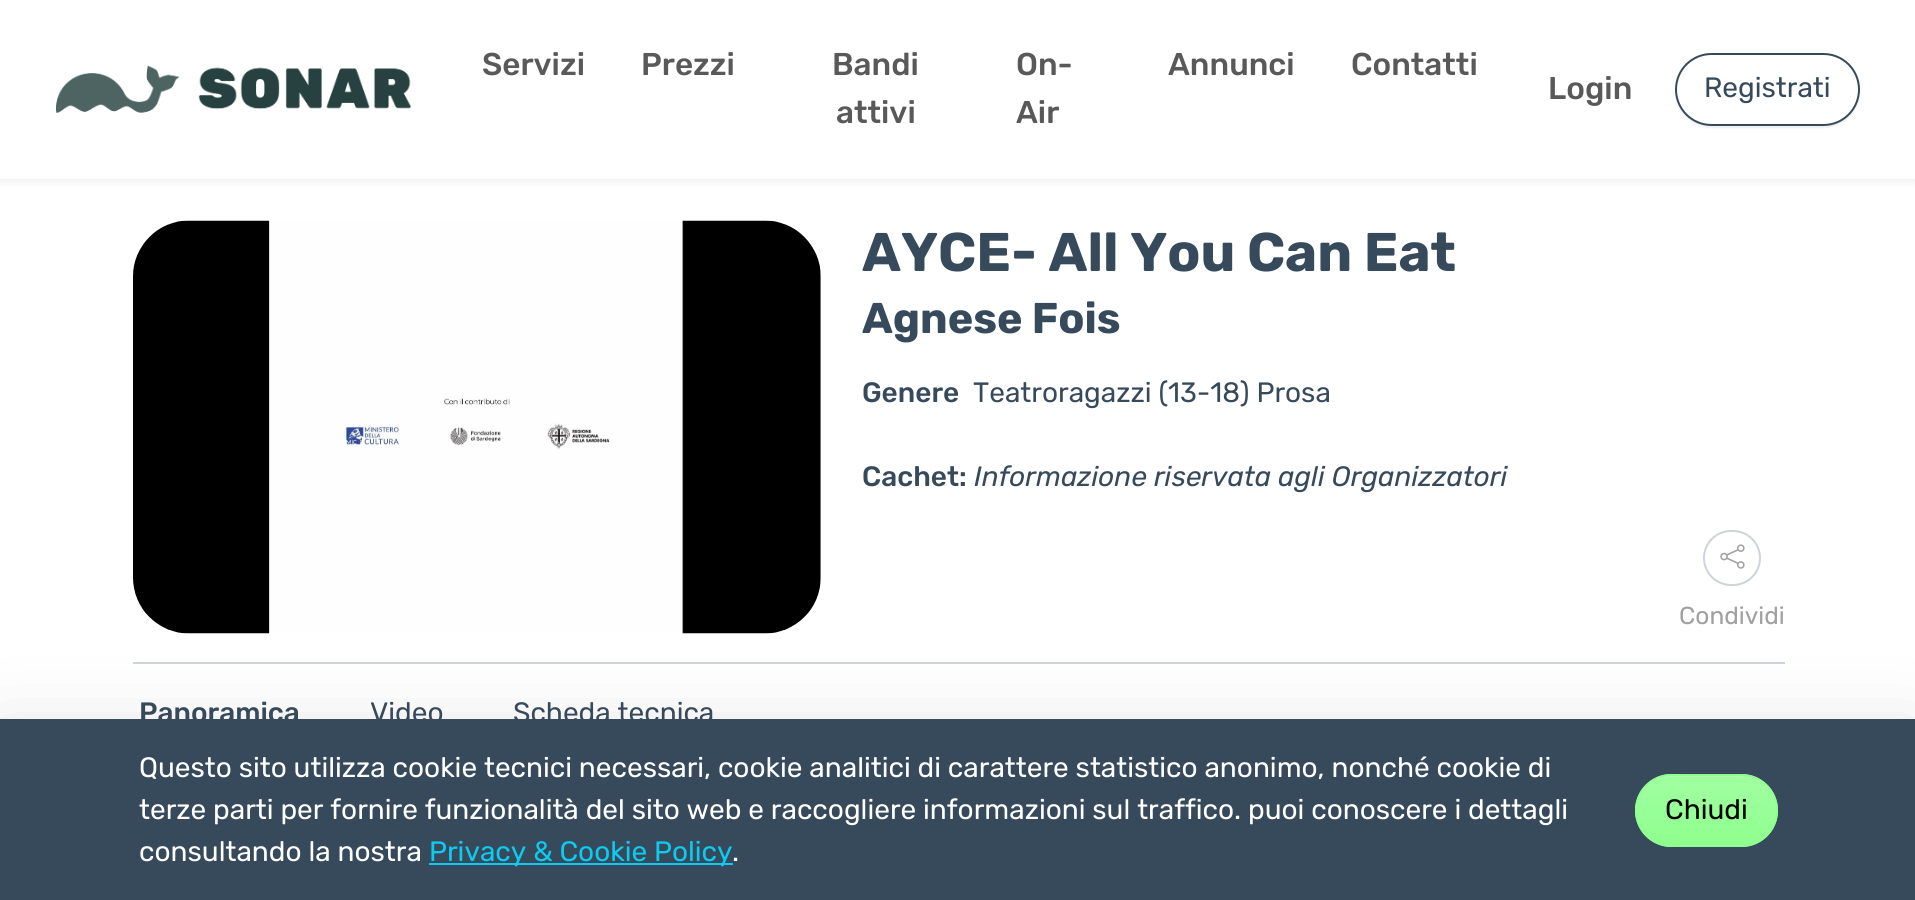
#include <cairo/cairo.h>
#include <math.h>
#include <stddef.h>

static cairo_t *cr;

static void use_color(int r, int g, int b) {
  cairo_set_source_rgb(cr, r / 255.0, g / 255.0, b / 255.0);
}

static void text(double x, double y, const char *s, const char *family, double size, int italic, int bold, int r, int g, int b) {
  cairo_select_font_face(cr, family, italic ? CAIRO_FONT_SLANT_ITALIC : CAIRO_FONT_SLANT_NORMAL,
    bold ? CAIRO_FONT_WEIGHT_BOLD : CAIRO_FONT_WEIGHT_NORMAL);
  cairo_set_font_size(cr, size);
  use_color(r, g, b);
  cairo_move_to(cr, x, y);
  cairo_show_text(cr, s);
}

static void box(double x, double y, double w, double h, int r, int g, int b) {
  use_color(r, g, b);
  cairo_rectangle(cr, x, y, w, h);
  cairo_fill(cr);
}

static void round_rect(double x, double y, double w, double h, double r) {
  cairo_new_sub_path(cr);
  cairo_arc(cr, x + w - r, y + h - r, r, 0, M_PI / 2);
  cairo_arc(cr, x + r, y + h - r, r, M_PI / 2, M_PI);
  cairo_arc(cr, x + r, y + r, r, M_PI, 1.5 * M_PI);
  cairo_arc(cr, x + w - r, y + r, r, 1.5 * M_PI, 2 * M_PI);
  cairo_close_path(cr);
}

static void shadow(double x, double y, double w, double h, double r, double blur, double alpha) {
  cairo_push_group_with_content(cr, CAIRO_CONTENT_ALPHA);
  cairo_set_operator(cr, CAIRO_OPERATOR_SOURCE);
  for (int i = 15; i >= -15 && fmin(w, h) + blur * i / 3 > 0; i -= 2) {
    double e = blur * i / 6;
    cairo_set_source_rgba(cr, 0, 0, 0, alpha * erfc((i - 1) / 8.5) / 2);
    round_rect(x - e, y - e, w + 2 * e, h + 2 * e, fmax(0, fmin(r + e + blur * .6, fmin(w, h) / 2 + e)));
    cairo_fill(cr);
  }
  cairo_pattern_t *soft = cairo_pop_group(cr);
  cairo_mask(cr, soft);
  cairo_pattern_destroy(soft);
}

static void picture(const char *path, double x, double y, double w, double h) {
  cairo_surface_t *image = cairo_image_surface_create_from_png(path);
  cairo_save(cr);
  cairo_set_source_surface(cr, image, x, y);
  cairo_rectangle(cr, x, y, w, h);
  cairo_fill(cr);
  cairo_restore(cr);
  cairo_surface_destroy(image);
}

static void draw(void) {
  cairo_pattern_t *gradient;
  use_color(255, 255, 255);
  cairo_paint(cr);
  use_color(0, 0, 0);
  shadow(0, 4, 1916, 178, 0, 3.5, 0.07);
  box(0, 0, 1915, 179, 255, 255, 255);
  picture("img_01.png", 56, 65, 356, 48);
  cairo_save(cr);
  cairo_set_fill_rule(cr, CAIRO_FILL_RULE_EVEN_ODD);
  cairo_new_path(cr);
  cairo_move_to(cr, 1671, 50);
  cairo_line_to(cr, 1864, 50);
  cairo_line_to(cr, 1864, 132);
  cairo_line_to(cr, 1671, 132);
  cairo_close_path(cr);
  cairo_move_to(cr, 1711.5, 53);
  cairo_line_to(cr, 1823.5, 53);
  cairo_curve_to(cr, 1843.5, 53, 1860, 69.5, 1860, 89.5);
  cairo_curve_to(cr, 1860, 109.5, 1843.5, 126, 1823.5, 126);
  cairo_line_to(cr, 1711.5, 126);
  cairo_curve_to(cr, 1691.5, 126, 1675, 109.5, 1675, 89.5);
  cairo_curve_to(cr, 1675, 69.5, 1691.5, 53, 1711.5, 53);
  cairo_close_path(cr);
  cairo_clip(cr);
  use_color(0, 0, 0);
  shadow(1675, 54, 185, 74, 37, 1, 0.07);
  cairo_restore(cr);
  round_rect(1676, 54, 183, 71, 35.5);
  use_color(55, 74, 92);
  cairo_stroke(cr);
  picture("img_02.png", 133, 220, 688, 414);
  round_rect(1704, 531, 56, 54, 27);
  use_color(206, 212, 218);
  cairo_stroke(cr);
  picture("img_03.png", 1720, 544, 25, 25);
  box(133, 662, 1652, 2, 206, 212, 218);
  use_color(0, 0, 0);
  shadow(0, 747, 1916, 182, 0, 42, 0.18);
  box(0, 719, 1915, 181, 55, 74, 92);
  box(429, 863, 304, 2, 13, 202, 240);
  use_color(143, 255, 143);
  round_rect(1635, 774, 143, 73, 36.5);
  cairo_fill(cr);
  cairo_save(cr);
  round_rect(1635, 774, 143, 73, 36.5);
  cairo_clip(cr);
  gradient = cairo_pattern_create_linear(1706, 775, 1706, 845);
  cairo_pattern_add_color_stop_rgba(gradient, 0, 1, 1, 1, 0.15);
  cairo_pattern_add_color_stop_rgba(gradient, 1, 1, 1, 1, 0);
  cairo_set_source(cr, gradient);
  cairo_pattern_destroy(gradient);
  cairo_rectangle(cr, 1635, 775, 143, 60);
  cairo_fill(cr);
  cairo_restore(cr);
  cairo_set_source_rgba(cr, 1, 1, 1, 0.15);
  cairo_new_path(cr);
  cairo_move_to(cr, 1671, 777);
  cairo_line_to(cr, 1741, 777);
  cairo_curve_to(cr, 1761, 777, 1775, 792, 1776, 811);
  cairo_line_to(cr, 1776, 810);
  cairo_curve_to(cr, 1776, 791, 1760, 775, 1741, 775);
  cairo_line_to(cr, 1671, 775);
  cairo_curve_to(cr, 1652, 775, 1636, 791, 1636, 810);
  cairo_line_to(cr, 1636, 811);
  cairo_curve_to(cr, 1637, 792, 1652, 777, 1671, 777);
  cairo_close_path(cr);
  cairo_fill(cr);
  round_rect(1636, 775, 141, 71, 35.5);
  use_color(143, 255, 143);
  cairo_stroke(cr);
  text(482, 75, "Servizi", "Rubik Medium", 31.5, 0, 0, 89, 89, 89);
  text(641, 75, "Prezzi", "Rubik Medium", 31.5, 0, 0, 89, 89, 89);
  text(832, 75, "Bandi", "Rubik Medium", 31.5, 0, 0, 89, 89, 89);
  text(836, 123, "attivi", "Rubik Medium", 31.5, 0, 0, 89, 89, 89);
  text(1016, 75, "On-", "Rubik Medium", 31.5, 0, 0, 89, 89, 89);
  text(1016, 123, "Air", "Rubik Medium", 31.5, 0, 0, 89, 89, 89);
  text(1168, 75, "Annunci", "Rubik Medium", 31.5, 0, 0, 89, 89, 89);
  text(1351, 75, "Contatti", "Rubik Medium", 31.5, 0, 0, 89, 89, 89);
  text(1548, 99, "Login", "Rubik Medium", 31.5, 0, 0, 89, 89, 89);
  text(1704, 97, "Registrati", "Rubik", 28, 0, 0, 55, 74, 92);
  text(862, 271, "AYCE- All You Can Eat", "Rubik", 54.4, 0, 1, 55, 74, 92);
  text(862, 333, "Agnese Fois", "Rubik", 43, 0, 1, 55, 74, 92);
  text(862, 402, "Genere", "Rubik Medium", 28, 0, 0, 55, 74, 92);
  text(973, 402, "Teatroragazzi (13-18) Prosa", "Rubik", 28, 0, 0, 55, 74, 92);
  text(862, 486, "Cachet:", "Rubik Medium", 28, 0, 0, 55, 74, 92);
  text(974, 486, "Informazione riservata agli Organizzatori", "Rubik", 28, 1, 0, 55, 74, 92);
  text(1679, 624, "Condividi", "Rubik", 24.5, 0, 0, 160, 160, 160);
  text(139, 722, "Panoramica", "Rubik Medium", 28, 0, 0, 55, 74, 92);
  text(370, 722, "Video", "Rubik", 28, 0, 0, 55, 74, 92);
  text(513, 722, "Scheda tecnica", "Rubik", 28, 0, 0, 55, 74, 92);
  text(139, 777, "Questo sito utilizza cookie tecnici necessari, cookie analitici di carattere statistico anonimo, nonché cookie di", "Rubik", 28, 0, 0, 255, 255, 255);
  text(139, 819, "terze parti per fornire funzionalità del sito web e raccogliere informazioni sul traffico. puoi conoscere i dettagli", "Rubik", 28, 0, 0, 255, 255, 255);
  text(139, 861, "consultando la nostra", "Rubik", 28, 0, 0, 255, 255, 255);
  text(429, 861, "Privacy & Cookie Policy", "Rubik", 28, 0, 0, 13, 202, 240);
  text(732, 861, ".", "Rubik", 28, 0, 0, 255, 255, 255);
  text(1665, 819, "Chiudi", "Rubik", 28, 0, 0, 0, 0, 0);
}

int main(void) {
  cairo_surface_t *surface = cairo_image_surface_create(CAIRO_FORMAT_RGB24, 1915, 900);
  cr = cairo_create(surface);
  cairo_font_options_t *options = cairo_font_options_create();
  cairo_font_options_set_hint_metrics(options, CAIRO_HINT_METRICS_OFF);
  cairo_font_options_set_hint_style(options, CAIRO_HINT_STYLE_NONE);
  cairo_set_font_options(cr, options);
  cairo_set_miter_limit(cr, 4);
  draw();
  cairo_surface_write_to_png(surface, "out.png");
  cairo_font_options_destroy(options);
  cairo_destroy(cr);
  cairo_surface_destroy(surface);
  return 0;
}
